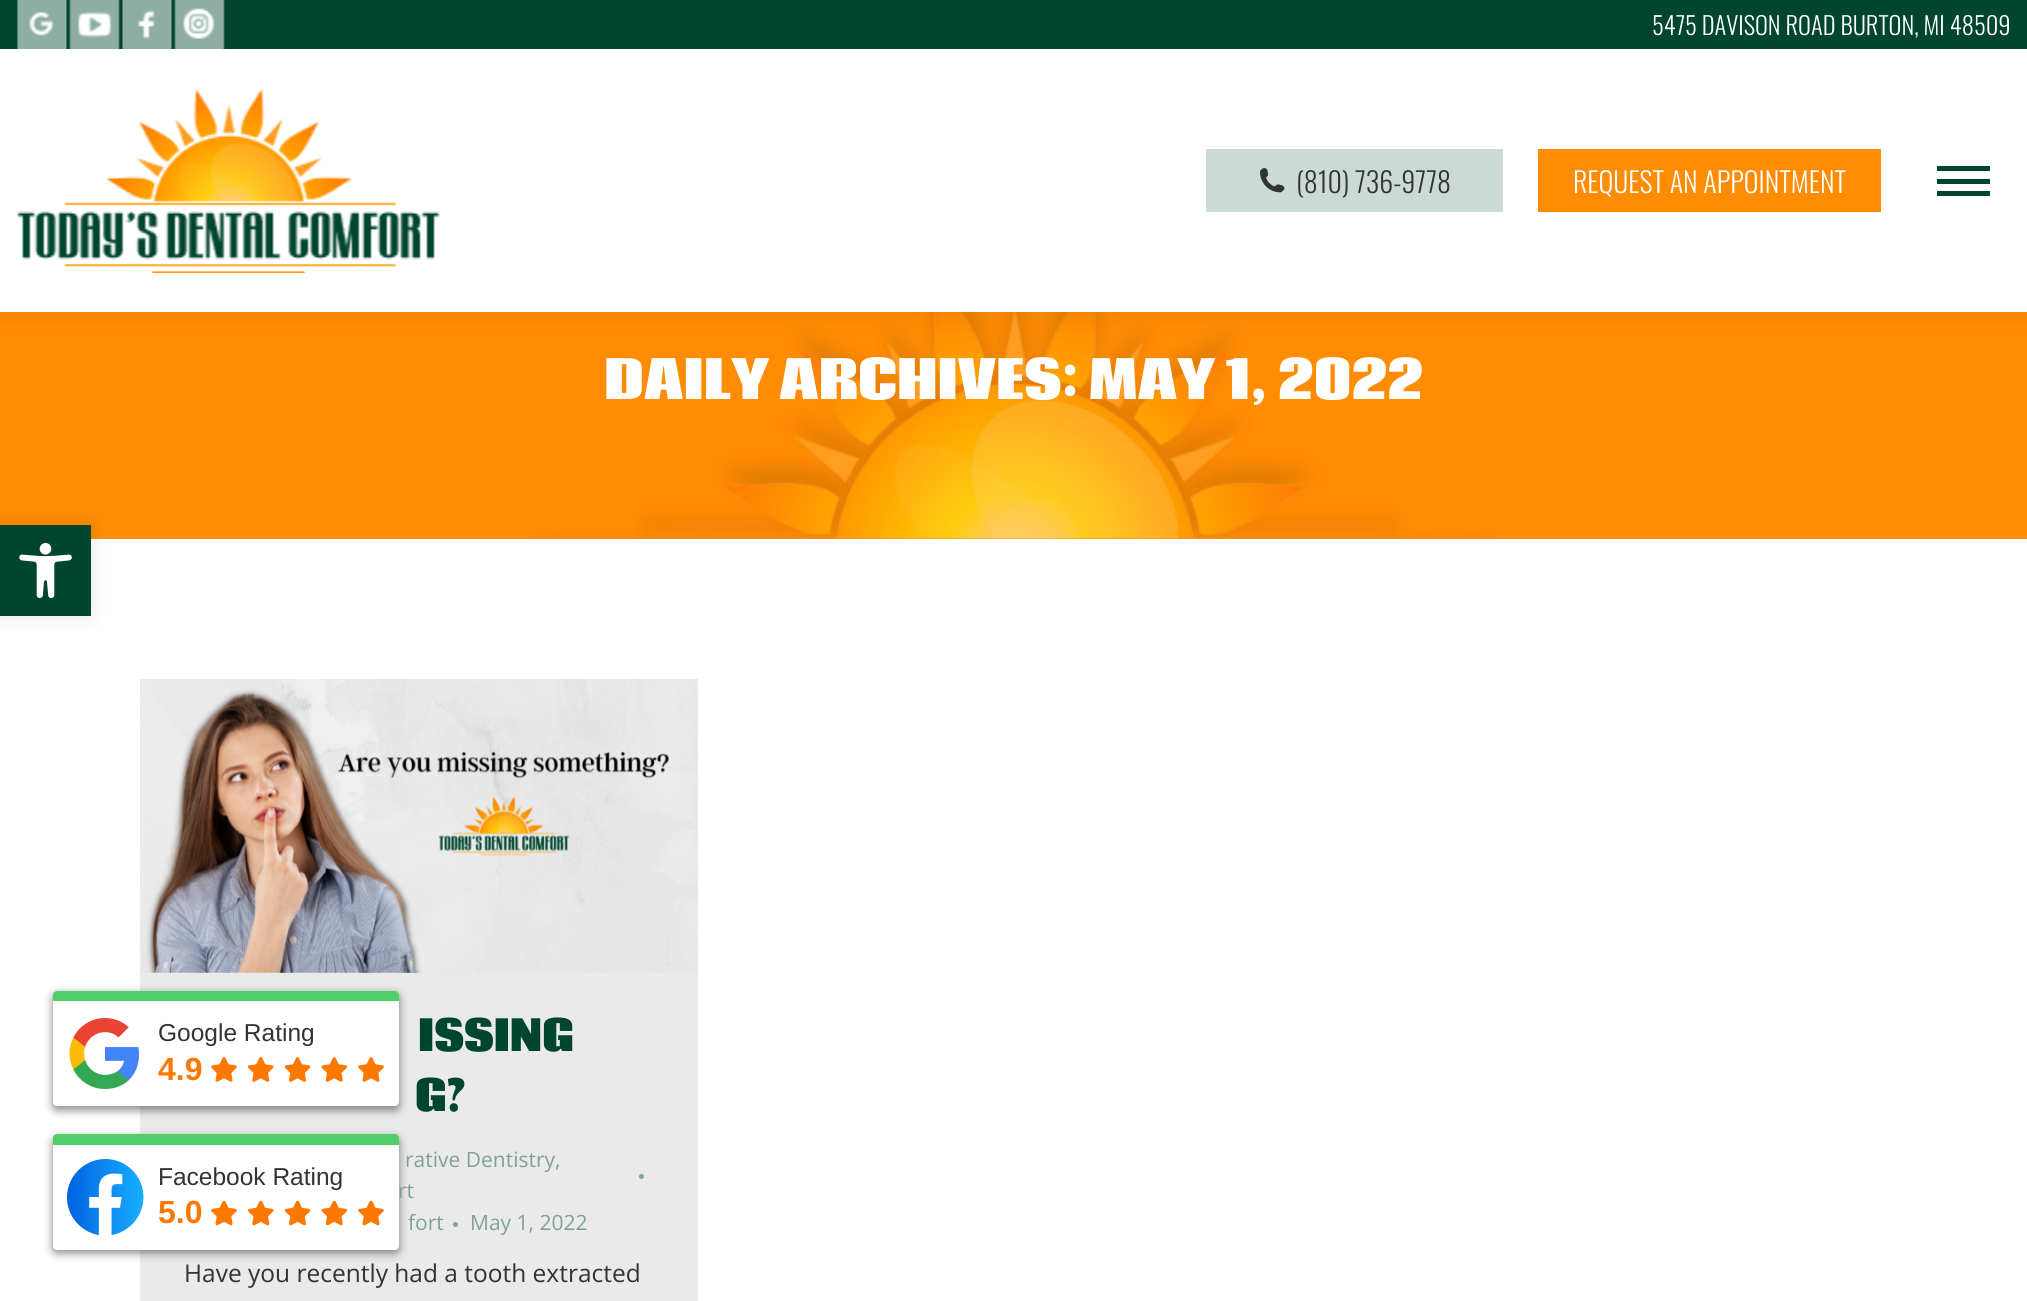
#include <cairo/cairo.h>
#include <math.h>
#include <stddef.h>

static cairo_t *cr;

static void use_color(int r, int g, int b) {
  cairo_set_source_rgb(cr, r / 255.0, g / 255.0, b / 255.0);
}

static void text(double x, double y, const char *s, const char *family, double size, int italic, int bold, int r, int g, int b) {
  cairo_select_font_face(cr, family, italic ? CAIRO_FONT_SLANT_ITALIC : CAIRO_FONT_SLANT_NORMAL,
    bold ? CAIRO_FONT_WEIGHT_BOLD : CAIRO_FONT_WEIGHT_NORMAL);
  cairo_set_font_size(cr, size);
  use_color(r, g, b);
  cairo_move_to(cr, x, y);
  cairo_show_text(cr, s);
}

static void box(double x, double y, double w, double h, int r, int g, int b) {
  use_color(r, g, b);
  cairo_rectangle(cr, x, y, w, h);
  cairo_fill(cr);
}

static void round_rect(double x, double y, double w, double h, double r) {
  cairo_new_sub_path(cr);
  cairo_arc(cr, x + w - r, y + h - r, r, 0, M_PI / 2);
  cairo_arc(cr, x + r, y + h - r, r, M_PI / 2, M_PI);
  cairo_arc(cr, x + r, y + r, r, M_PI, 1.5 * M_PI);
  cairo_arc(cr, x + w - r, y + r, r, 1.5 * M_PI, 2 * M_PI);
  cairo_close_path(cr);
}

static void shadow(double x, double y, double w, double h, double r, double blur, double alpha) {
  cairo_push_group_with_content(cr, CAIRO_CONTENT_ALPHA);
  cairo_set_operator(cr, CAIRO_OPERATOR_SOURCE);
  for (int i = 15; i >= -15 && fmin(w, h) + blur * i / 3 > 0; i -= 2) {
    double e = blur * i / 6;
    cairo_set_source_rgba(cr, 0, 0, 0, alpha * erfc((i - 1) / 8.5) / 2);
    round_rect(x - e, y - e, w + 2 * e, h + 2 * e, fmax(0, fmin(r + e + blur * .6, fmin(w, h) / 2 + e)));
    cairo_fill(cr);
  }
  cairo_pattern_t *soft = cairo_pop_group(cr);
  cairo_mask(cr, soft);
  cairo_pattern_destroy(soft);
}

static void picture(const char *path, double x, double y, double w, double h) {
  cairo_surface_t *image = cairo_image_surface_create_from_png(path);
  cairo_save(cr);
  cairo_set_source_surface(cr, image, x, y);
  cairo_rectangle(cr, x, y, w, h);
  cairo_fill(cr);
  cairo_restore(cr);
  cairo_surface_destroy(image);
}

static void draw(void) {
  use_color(255, 255, 255);
  cairo_paint(cr);
  box(91, 538, 1936, 1, 255, 140, 3);
  picture("img_08.png", 0, 312, 2027, 227);
  use_color(0, 0, 0);
  shadow(0, 525, 91, 91, 0, 9, 0.1);
  box(0, 525, 91, 91, 0, 70, 47);
  picture("img_01.png", 19, 543, 53, 56);
  use_color(0, 0, 0);
  shadow(-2, -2, 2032, 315, 0, 13, 0.07);
  box(0, 49, 2027, 263, 255, 255, 255);
  box(0, 0, 2027, 49, 0, 70, 47);
  picture("img_02.png", 17, 0, 50, 49);
  picture("img_03.png", 69, 0, 51, 49);
  picture("img_04.png", 122, 0, 50, 49);
  picture("img_05.png", 174, 0, 51, 49);
  picture("img_06.png", 17, 89, 423, 184);
  box(1206, 149, 297, 63, 204, 218, 213);
  picture("img_07.png", 1260, 168, 25, 25);
  box(1538, 149, 343, 63, 255, 140, 3);
  box(1937, 166, 53, 5, 0, 70, 47);
  box(1937, 179, 53, 5, 0, 70, 47);
  box(1937, 191, 53, 5, 0, 70, 47);
  box(140, 679, 558, 622, 234, 234, 234);
  use_color(0, 0, 0);
  shadow(53, 994, 346, 116, 4, 4.5, 0.26);
  shadow(53, 1138, 346, 115, 4, 4.5, 0.26);
  picture("img_09.png", 141, 679, 557, 294);
  use_color(127, 162, 151);
  cairo_arc(cr, 641.5, 1176.5, 2.5, 0, 2 * M_PI);
  cairo_fill(cr);
  cairo_arc(cr, 455.5, 1224.5, 2.5, 0, 2 * M_PI);
  cairo_fill(cr);
  use_color(0, 0, 0);
  shadow(53, 994, 346, 116, 4, 4.5, 0.26);
  use_color(79, 206, 106);
  cairo_new_path(cr);
  cairo_move_to(cr, 57, 991);
  cairo_line_to(cr, 395, 991);
  cairo_curve_to(cr, 397, 991, 399, 993, 399, 995);
  cairo_line_to(cr, 399, 1001);
  cairo_line_to(cr, 53, 1001);
  cairo_line_to(cr, 53, 995);
  cairo_curve_to(cr, 53, 993, 55, 991, 57, 991);
  cairo_close_path(cr);
  cairo_fill(cr);
  use_color(255, 255, 255);
  cairo_new_path(cr);
  cairo_move_to(cr, 53, 1001);
  cairo_line_to(cr, 399, 1001);
  cairo_line_to(cr, 399, 1102);
  cairo_curve_to(cr, 399, 1104, 397, 1106, 395, 1106);
  cairo_line_to(cr, 57, 1106);
  cairo_curve_to(cr, 55, 1106, 53, 1104, 53, 1102);
  cairo_close_path(cr);
  cairo_fill(cr);
  picture("img_10.png", 69, 1018, 71, 71);
  picture("img_11.png", 211, 1057, 26, 25);
  picture("img_12.png", 248, 1057, 26, 25);
  picture("img_13.png", 284, 1057, 27, 25);
  picture("img_14.png", 321, 1057, 26, 25);
  picture("img_11.png", 358, 1057, 26, 25);
  use_color(0, 0, 0);
  shadow(53, 1138, 346, 115, 4, 4.5, 0.26);
  use_color(79, 206, 106);
  cairo_new_path(cr);
  cairo_move_to(cr, 57, 1134);
  cairo_line_to(cr, 395, 1134);
  cairo_curve_to(cr, 397, 1134, 399, 1136, 399, 1138);
  cairo_line_to(cr, 399, 1145);
  cairo_line_to(cr, 53, 1145);
  cairo_line_to(cr, 53, 1138);
  cairo_curve_to(cr, 53, 1136, 55, 1134, 57, 1134);
  cairo_close_path(cr);
  cairo_fill(cr);
  use_color(255, 255, 255);
  cairo_new_path(cr);
  cairo_move_to(cr, 53, 1145);
  cairo_line_to(cr, 399, 1145);
  cairo_line_to(cr, 399, 1246);
  cairo_curve_to(cr, 399, 1248, 397, 1250, 395, 1250);
  cairo_line_to(cr, 57, 1250);
  cairo_curve_to(cr, 55, 1250, 53, 1248, 53, 1246);
  cairo_close_path(cr);
  cairo_fill(cr);
  picture("img_15.png", 67, 1159, 77, 76);
  picture("img_16.png", 211, 1201, 26, 25);
  picture("img_17.png", 248, 1201, 26, 25);
  picture("img_18.png", 284, 1201, 27, 25);
  picture("img_19.png", 321, 1201, 26, 25);
  picture("img_16.png", 358, 1201, 26, 25);
  text(1652, 35, "5475 DAVISON ROAD BURTON, MI 48509", "Oswald Light", 24.5, 0, 0, 255, 255, 255);
  text(1296, 193, "(810) 736-9778", "Oswald Light", 28, 0, 0, 51, 51, 51);
  text(1573, 193, "REQUEST AN APPOINTMENT", "Oswald Light", 28, 0, 0, 255, 255, 255);
  text(604, 399, "DAILY ARCHIVES: MAY 1, 2022", "Coda ExtraBold", 52.5, 0, 0, 255, 255, 255);
  text(418, 1051, "ISSING", "Coda ExtraBold", 42, 0, 0, 0, 70, 47);
  text(415, 1111, "G?", "Coda ExtraBold", 42, 0, 0, 0, 70, 47);
  text(405, 1167, "rative Dentistry,", "Open Sans", 21, 0, 0, 127, 162, 151);
  text(398, 1198, "rt", "Open Sans", 21, 0, 0, 127, 162, 151);
  text(408, 1230, "fort", "Open Sans", 21, 0, 0, 127, 162, 151);
  text(470, 1230, "May 1, 2022", "Open Sans", 21, 0, 0, 127, 162, 151);
  text(184, 1282, "Have you recently had a tooth extracted", "Open Sans", 24.5, 0, 0, 51, 51, 51);
  text(158, 1041, "Google Rating", "Liberation Sans", 24.5, 0, 0, 51, 51, 51);
  text(158, 1080, "4.9", "Liberation Sans", 32, 0, 1, 251, 121, 0);
  text(158, 1185, "Facebook Rating", "Liberation Sans", 24.5, 0, 0, 51, 51, 51);
  text(158, 1223, "5.0", "Liberation Sans", 32, 0, 1, 251, 121, 0);
}

int main(void) {
  cairo_surface_t *surface = cairo_image_surface_create(CAIRO_FORMAT_RGB24, 2027, 1301);
  cr = cairo_create(surface);
  cairo_font_options_t *options = cairo_font_options_create();
  cairo_font_options_set_hint_metrics(options, CAIRO_HINT_METRICS_OFF);
  cairo_font_options_set_hint_style(options, CAIRO_HINT_STYLE_NONE);
  cairo_set_font_options(cr, options);
  cairo_set_miter_limit(cr, 4);
  draw();
  cairo_surface_write_to_png(surface, "out.png");
  cairo_font_options_destroy(options);
  cairo_destroy(cr);
  cairo_surface_destroy(surface);
  return 0;
}
